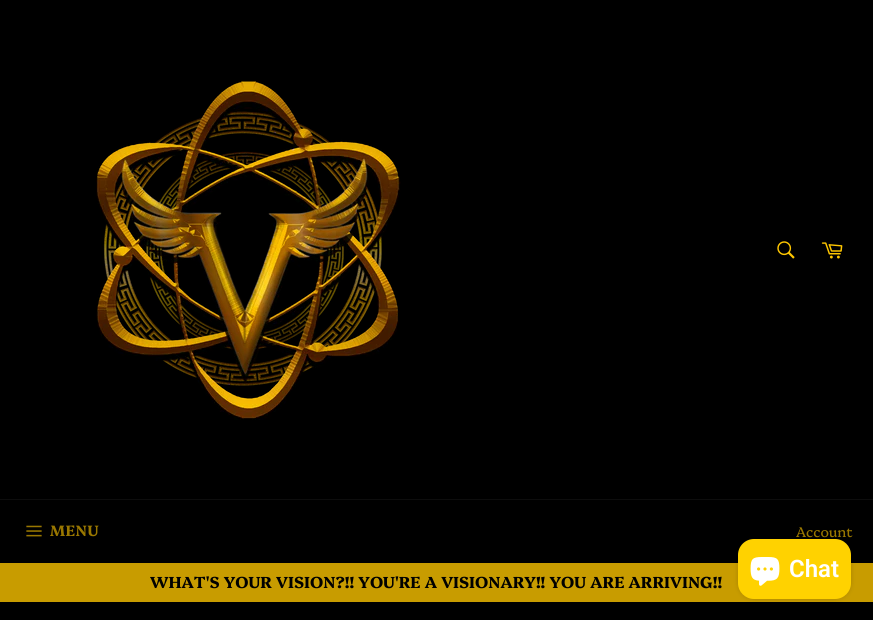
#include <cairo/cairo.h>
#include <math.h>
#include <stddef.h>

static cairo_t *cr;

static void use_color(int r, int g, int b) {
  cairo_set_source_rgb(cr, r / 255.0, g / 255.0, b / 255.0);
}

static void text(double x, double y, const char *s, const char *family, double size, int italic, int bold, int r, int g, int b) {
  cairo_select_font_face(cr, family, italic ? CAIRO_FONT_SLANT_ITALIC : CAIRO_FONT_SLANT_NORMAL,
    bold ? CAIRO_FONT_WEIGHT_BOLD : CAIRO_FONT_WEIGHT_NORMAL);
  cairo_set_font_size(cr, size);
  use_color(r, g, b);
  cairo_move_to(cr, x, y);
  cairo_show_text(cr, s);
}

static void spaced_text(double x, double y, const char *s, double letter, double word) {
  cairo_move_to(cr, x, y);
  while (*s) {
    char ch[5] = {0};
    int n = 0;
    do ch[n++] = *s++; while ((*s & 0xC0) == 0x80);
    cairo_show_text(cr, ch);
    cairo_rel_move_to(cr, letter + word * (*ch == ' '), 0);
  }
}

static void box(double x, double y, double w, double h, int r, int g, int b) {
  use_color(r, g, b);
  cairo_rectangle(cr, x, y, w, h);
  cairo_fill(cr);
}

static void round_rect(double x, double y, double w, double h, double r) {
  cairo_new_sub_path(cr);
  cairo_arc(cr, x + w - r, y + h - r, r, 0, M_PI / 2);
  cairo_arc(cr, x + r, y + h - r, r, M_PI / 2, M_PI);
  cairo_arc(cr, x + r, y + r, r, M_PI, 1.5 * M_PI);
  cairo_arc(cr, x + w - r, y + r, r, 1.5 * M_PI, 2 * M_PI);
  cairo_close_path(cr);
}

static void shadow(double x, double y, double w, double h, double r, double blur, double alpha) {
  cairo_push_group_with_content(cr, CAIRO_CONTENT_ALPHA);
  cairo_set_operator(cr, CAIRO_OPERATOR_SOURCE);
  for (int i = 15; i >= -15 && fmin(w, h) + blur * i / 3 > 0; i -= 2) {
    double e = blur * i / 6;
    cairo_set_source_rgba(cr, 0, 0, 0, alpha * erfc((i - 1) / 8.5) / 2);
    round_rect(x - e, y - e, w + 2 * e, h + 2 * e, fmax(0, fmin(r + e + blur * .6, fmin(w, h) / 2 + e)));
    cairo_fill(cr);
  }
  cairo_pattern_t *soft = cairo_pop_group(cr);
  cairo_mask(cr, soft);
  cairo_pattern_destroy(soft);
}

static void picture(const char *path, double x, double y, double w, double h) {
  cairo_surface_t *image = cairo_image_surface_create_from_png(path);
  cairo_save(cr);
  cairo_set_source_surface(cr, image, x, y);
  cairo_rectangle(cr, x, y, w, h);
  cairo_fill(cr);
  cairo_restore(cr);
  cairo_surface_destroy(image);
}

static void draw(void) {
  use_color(0, 0, 0);
  cairo_paint(cr);
  picture("img_01.png", 96, 81, 305, 339);
  picture("img_02.png", 777, 241, 18, 18);
  picture("img_03.png", 821, 242, 22, 17);
  box(0, 499, 873, 1, 13, 13, 13);
  picture("img_04.png", 26, 525, 16, 12);
  box(0, 563, 873, 39, 200, 156, 0);
  use_color(0, 0, 0);
  shadow(738, 539, 113, 60, 16, 2.5, 0.15);
  use_color(255, 210, 0);
  round_rect(738, 539, 113, 60, 16);
  cairo_fill(cr);
  picture("img_05.png", 750, 557, 30, 29);
  cairo_select_font_face(cr, "Platypi", CAIRO_FONT_SLANT_NORMAL, CAIRO_FONT_WEIGHT_BOLD);
  cairo_set_font_size(cr, 15);
  use_color(153, 119, 0);
  spaced_text(50, 536, "MENU", 0.5, 0);
  text(796, 537, "Account", "Platypi", 14, 0, 0, 153, 119, 0);
  text(150, 588, "WHAT'S YOUR VISION?!! YOU'RE A VISIONARY!! YOU ARE ARRIVING!!", "Platypi", 16, 0, 1, 1, 1, 0);
  text(789, 577, "Chat", "Roboto SemiBold", 24, 0, 0, 255, 255, 255);
}

int main(void) {
  cairo_surface_t *surface = cairo_image_surface_create(CAIRO_FORMAT_RGB24, 873, 620);
  cr = cairo_create(surface);
  cairo_font_options_t *options = cairo_font_options_create();
  cairo_font_options_set_hint_metrics(options, CAIRO_HINT_METRICS_OFF);
  cairo_font_options_set_hint_style(options, CAIRO_HINT_STYLE_NONE);
  cairo_set_font_options(cr, options);
  cairo_set_miter_limit(cr, 4);
  draw();
  cairo_surface_write_to_png(surface, "out.png");
  cairo_font_options_destroy(options);
  cairo_destroy(cr);
  cairo_surface_destroy(surface);
  return 0;
}
